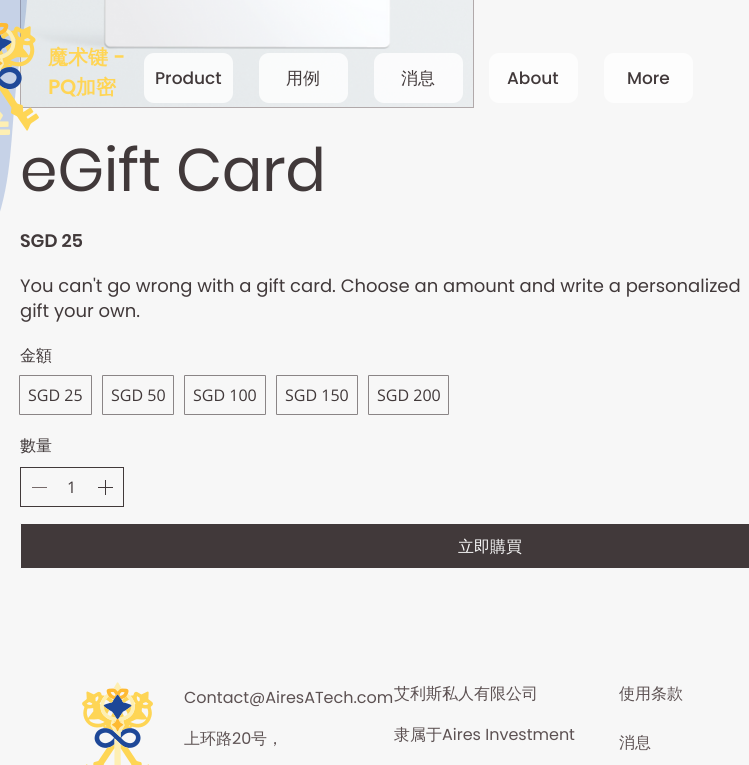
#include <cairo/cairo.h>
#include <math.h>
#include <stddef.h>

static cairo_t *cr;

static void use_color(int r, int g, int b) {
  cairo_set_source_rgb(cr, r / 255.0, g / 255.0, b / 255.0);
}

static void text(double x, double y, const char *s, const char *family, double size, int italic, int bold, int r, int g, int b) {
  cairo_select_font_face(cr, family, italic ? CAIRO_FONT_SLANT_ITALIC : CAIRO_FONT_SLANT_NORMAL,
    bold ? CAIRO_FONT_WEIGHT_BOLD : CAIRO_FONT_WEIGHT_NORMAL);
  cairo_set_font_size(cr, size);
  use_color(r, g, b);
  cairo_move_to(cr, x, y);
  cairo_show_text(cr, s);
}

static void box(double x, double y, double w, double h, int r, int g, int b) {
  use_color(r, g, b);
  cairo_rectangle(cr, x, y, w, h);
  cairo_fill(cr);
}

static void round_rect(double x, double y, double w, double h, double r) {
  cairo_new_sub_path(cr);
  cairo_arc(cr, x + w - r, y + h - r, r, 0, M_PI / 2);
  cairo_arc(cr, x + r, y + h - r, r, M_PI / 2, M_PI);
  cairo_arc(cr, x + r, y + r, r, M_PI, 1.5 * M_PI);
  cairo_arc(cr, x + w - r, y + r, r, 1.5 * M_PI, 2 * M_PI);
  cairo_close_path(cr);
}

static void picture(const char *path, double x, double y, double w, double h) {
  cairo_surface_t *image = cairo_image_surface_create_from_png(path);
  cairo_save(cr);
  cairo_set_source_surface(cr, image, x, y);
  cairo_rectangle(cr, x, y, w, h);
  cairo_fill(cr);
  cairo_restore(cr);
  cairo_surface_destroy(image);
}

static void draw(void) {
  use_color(247, 247, 247);
  cairo_paint(cr);
  cairo_rectangle(cr, 20.5, -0.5, 453, 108);
  use_color(177, 169, 170);
  cairo_set_line_width(cr, 1);
  cairo_stroke(cr);
  picture("img_02.png", 21, 0, 452, 107);
  cairo_set_source_rgba(cr, 1, 1, 1, 0.8);
  round_rect(144, 53, 89, 50, 10);
  cairo_fill(cr);
  round_rect(259, 53, 89, 50, 10);
  cairo_fill(cr);
  round_rect(374, 53, 89, 50, 10);
  cairo_fill(cr);
  use_color(253, 253, 253);
  round_rect(489, 53, 89, 50, 10);
  cairo_fill(cr);
  round_rect(604, 53, 89, 50, 10);
  cairo_fill(cr);
  round_rect(19.5, 375.5, 72, 39, 0.5);
  use_color(138, 133, 134);
  cairo_stroke(cr);
  round_rect(102.5, 375.5, 71, 39, 0.5);
  cairo_stroke(cr);
  round_rect(184.5, 375.5, 81, 39, 0.5);
  cairo_stroke(cr);
  round_rect(276.5, 375.5, 81, 39, 0.5);
  cairo_stroke(cr);
  round_rect(368.5, 375.5, 80, 39, 0.5);
  cairo_stroke(cr);
  cairo_rectangle(cr, 20.5, 467.5, 103, 39);
  use_color(65, 57, 58);
  cairo_stroke(cr);
  box(32, 487, 15, 1, 118, 106, 106);
  picture("img_03.png", 98, 480, 15, 15);
  use_color(65, 57, 58);
  round_rect(20.5, 523.5, 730, 45, 0.5);
  cairo_fill_preserve(cr);
  use_color(247, 247, 247);
  cairo_stroke(cr);
  picture("img_04.png", 82, 682, 71, 83);
  text(48, 64, "魔术键", "WenQuanYi Zen Hei", 20, 0, 1, 255, 213, 85);
  text(113, 64, "-", "Poppins", 20, 0, 1, 255, 213, 85);
  text(48, 94, "PQ", "Poppins", 20, 0, 1, 255, 213, 85);
  text(76, 94, "加密", "WenQuanYi Zen Hei", 20, 0, 1, 255, 213, 85);
  text(155, 84, "Product", "Poppins Medium", 17, 0, 0, 65, 57, 58);
  text(286, 84, "用例", "WenQuanYi Zen Hei Medium", 17, 0, 0, 65, 57, 58);
  text(401, 84, "消息", "WenQuanYi Zen Hei Medium", 17, 0, 0, 65, 57, 58);
  text(507, 84, "About", "Poppins Medium", 17, 0, 0, 65, 57, 58);
  text(627, 84, "More", "Poppins Medium", 17, 0, 0, 65, 57, 58);
  text(20, 191, "eGift Card", "Poppins", 60, 0, 0, 65, 57, 58);
  cairo_set_source_rgba(cr, 0.271, 0.435, 0.749, 0.27);
  cairo_set_fill_rule(cr, CAIRO_FILL_RULE_EVEN_ODD);
  cairo_new_path(cr);
  cairo_move_to(cr, -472, 0);
  cairo_line_to(cr, -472, 401);
  cairo_curve_to(cr, -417, 427, -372, 426, -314, 404);
  cairo_line_to(cr, -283, 391);
  cairo_line_to(cr, -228, 366);
  cairo_curve_to(cr, -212, 360, -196, 354, -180, 349);
  cairo_curve_to(cr, -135, 335, -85, 323, -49, 292);
  cairo_curve_to(cr, -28, 274, -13, 250, -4, 224);
  cairo_curve_to(cr, 12, 180, 11, 133, 16, 88);
  cairo_curve_to(cr, 19, 59, 25, 30, 27, 0);
  cairo_close_path(cr);
  cairo_fill(cr);
  picture("img_01.png", 0, 22, 39, 113);
  text(20, 247, "SGD 25", "Poppins SemiBold", 18, 0, 0, 65, 57, 58);
  text(20, 292, "You can't go wrong with a gift card. Choose an amount and write a personalized", "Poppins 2", 18, 0, 0, 65, 57, 58);
  text(20, 317, "gift your own.", "Poppins 2", 18, 0, 0, 65, 57, 58);
  text(20, 361, "金額", "WenQuanYi Zen Hei Medium", 16, 0, 0, 65, 57, 58);
  text(28, 401, "SGD 25", "Open Sans", 16, 0, 0, 65, 57, 58);
  text(111, 401, "SGD 50", "Open Sans", 16, 0, 0, 65, 57, 58);
  text(193, 401, "SGD 100", "Open Sans", 16, 0, 0, 65, 57, 58);
  text(285, 401, "SGD 150", "Open Sans", 16, 0, 0, 65, 57, 58);
  text(377, 401, "SGD 200", "Open Sans", 16, 0, 0, 65, 57, 58);
  text(20, 451, "數量", "WenQuanYi Zen Hei Medium", 16, 0, 0, 65, 57, 58);
  text(67, 493, "1", "Open Sans", 16, 0, 0, 65, 57, 58);
  text(458, 552, "立即購買", "WenQuanYi Zen Hei Medium", 16, 0, 0, 247, 247, 247);
  text(184, 703, "Contact@AiresATech.com", "Poppins 2", 16, 0, 0, 92, 81, 82);
  text(184, 744, "上环路", "WenQuanYi Zen Hei Medium", 16, 0, 0, 92, 81, 82);
  text(232, 744, "20", "Poppins 2", 16, 0, 0, 92, 81, 82);
  text(251, 744, "号，", "WenQuanYi Zen Hei Medium", 16, 0, 0, 92, 81, 82);
  text(394, 699, "艾利斯私人有限公司", "WenQuanYi Zen Hei Medium", 16, 0, 0, 92, 81, 82);
  text(394, 740, "隶属于", "WenQuanYi Zen Hei Medium", 16, 0, 0, 92, 81, 82);
  text(442, 740, "Aires Investment", "Poppins 2", 16, 0, 0, 92, 81, 82);
  text(619, 699, "使用条款", "WenQuanYi Zen Hei Medium", 16, 0, 0, 92, 81, 82);
  text(619, 748, "消息", "WenQuanYi Zen Hei Medium", 16, 0, 0, 92, 81, 82);
}

int main(void) {
  cairo_surface_t *surface = cairo_image_surface_create(CAIRO_FORMAT_RGB24, 749, 765);
  cr = cairo_create(surface);
  cairo_font_options_t *options = cairo_font_options_create();
  cairo_font_options_set_hint_metrics(options, CAIRO_HINT_METRICS_OFF);
  cairo_font_options_set_hint_style(options, CAIRO_HINT_STYLE_NONE);
  cairo_set_font_options(cr, options);
  cairo_set_miter_limit(cr, 4);
  draw();
  cairo_surface_write_to_png(surface, "out.png");
  cairo_font_options_destroy(options);
  cairo_destroy(cr);
  cairo_surface_destroy(surface);
  return 0;
}
